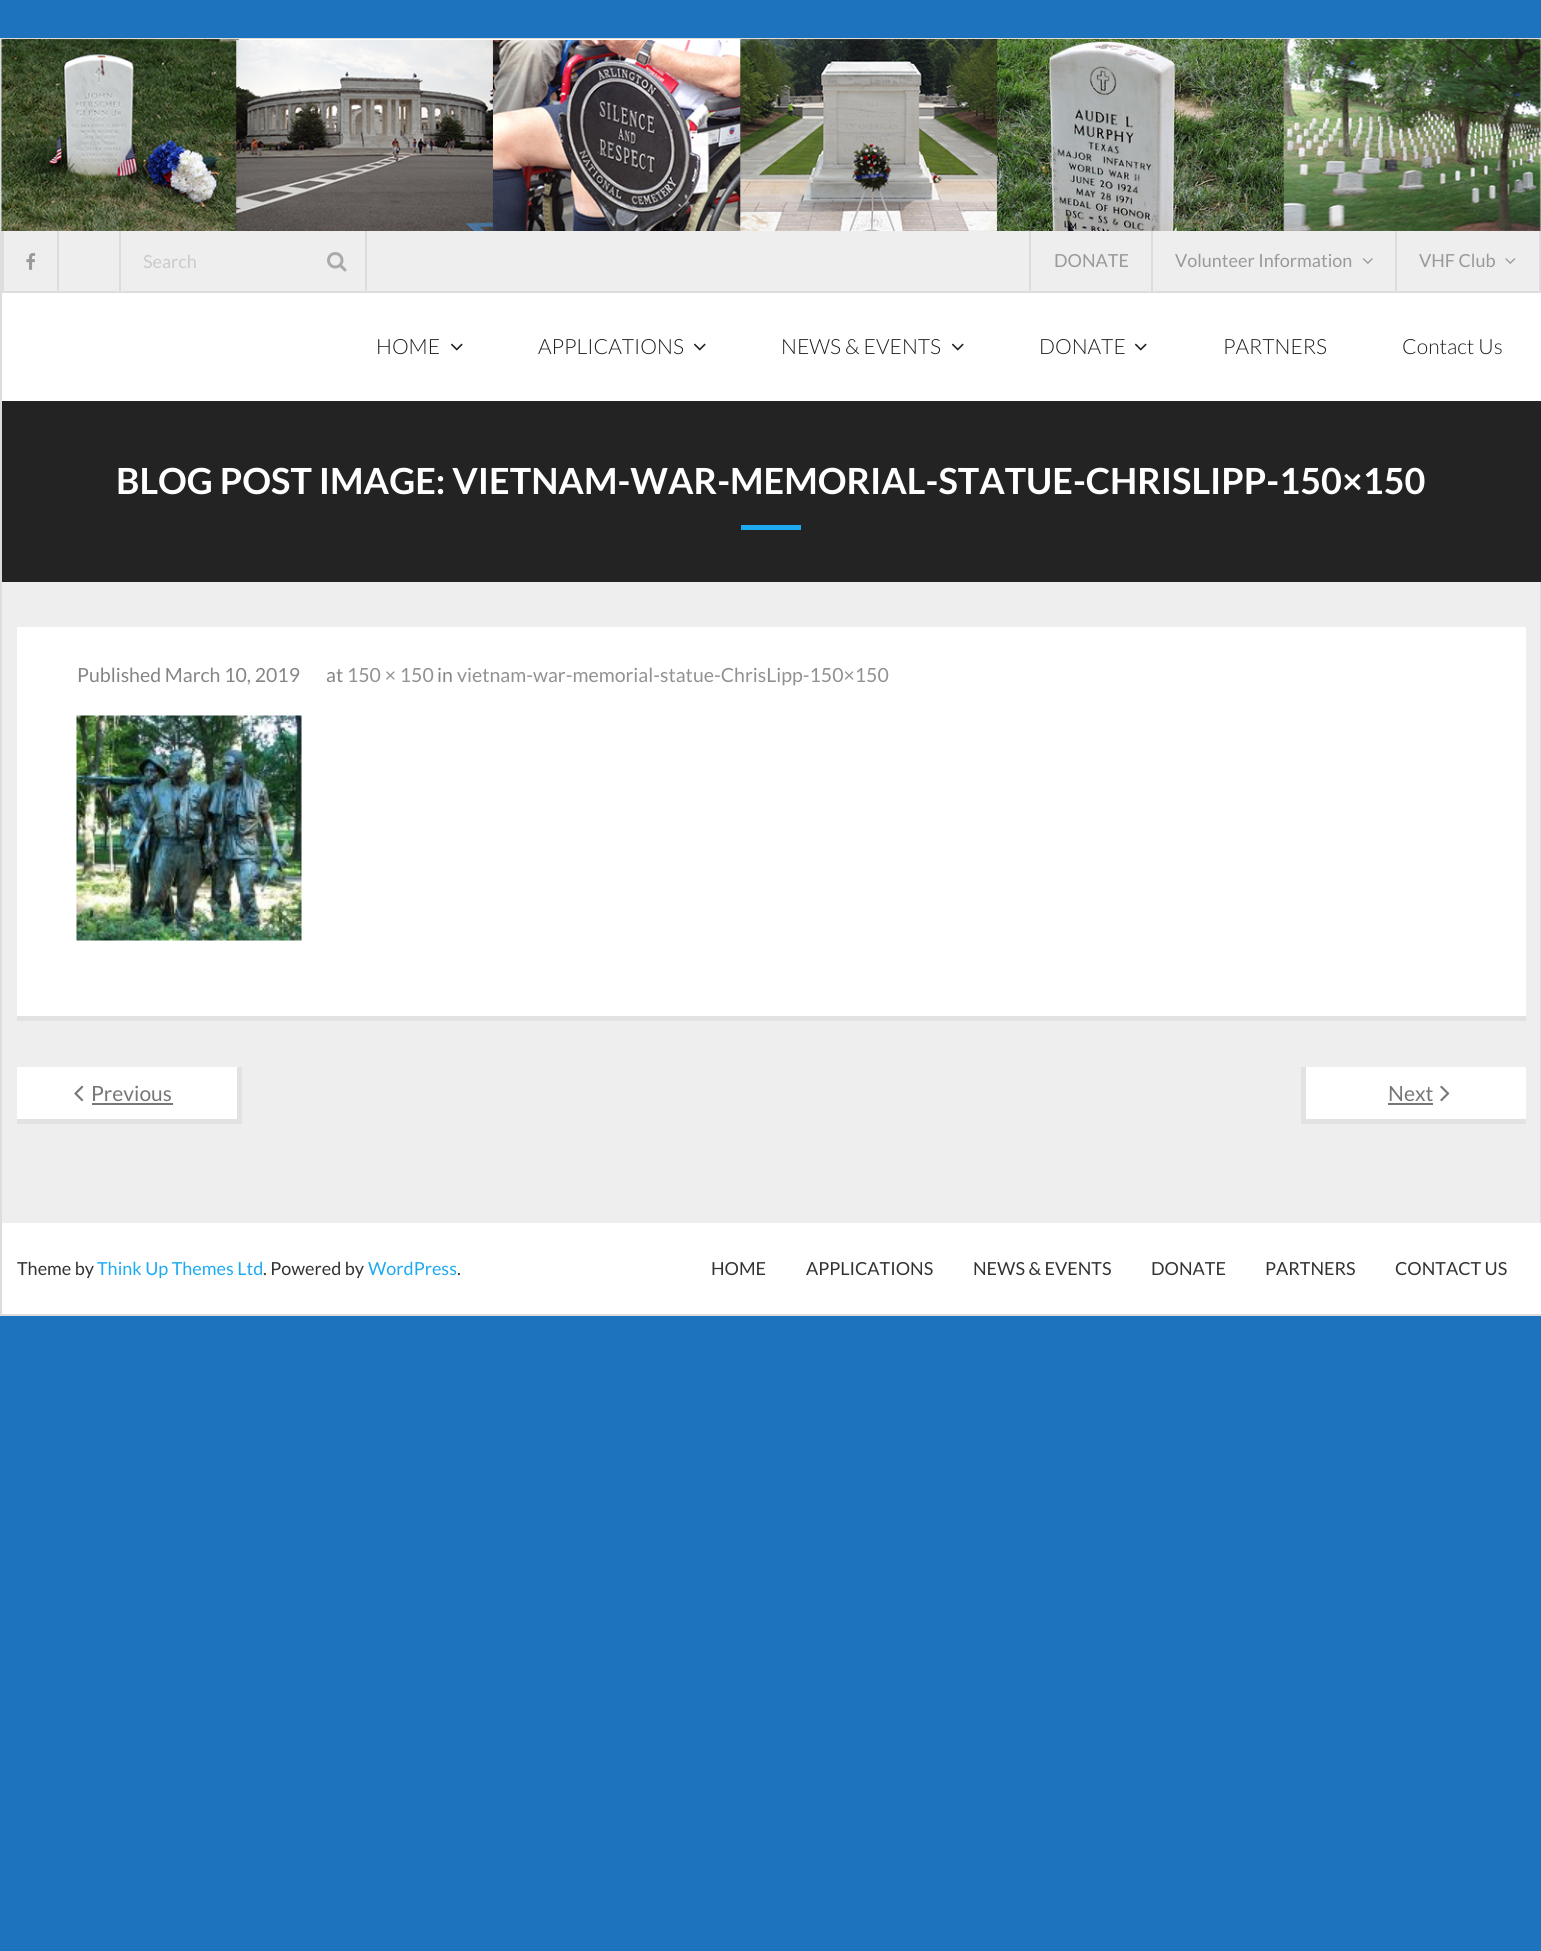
#include <cairo/cairo.h>
#include <math.h>
#include <stddef.h>

static cairo_t *cr;

static void use_color(int r, int g, int b) {
  cairo_set_source_rgb(cr, r / 255.0, g / 255.0, b / 255.0);
}

static void text(double x, double y, const char *s, const char *family, double size, int italic, int bold, int r, int g, int b) {
  cairo_select_font_face(cr, family, italic ? CAIRO_FONT_SLANT_ITALIC : CAIRO_FONT_SLANT_NORMAL,
    bold ? CAIRO_FONT_WEIGHT_BOLD : CAIRO_FONT_WEIGHT_NORMAL);
  cairo_set_font_size(cr, size);
  use_color(r, g, b);
  cairo_move_to(cr, x, y);
  cairo_show_text(cr, s);
}

static void box(double x, double y, double w, double h, int r, int g, int b) {
  use_color(r, g, b);
  cairo_rectangle(cr, x, y, w, h);
  cairo_fill(cr);
}

static void picture(const char *path, double x, double y, double w, double h) {
  cairo_surface_t *image = cairo_image_surface_create_from_png(path);
  cairo_save(cr);
  cairo_set_source_surface(cr, image, x, y);
  cairo_rectangle(cr, x, y, w, h);
  cairo_fill(cr);
  cairo_restore(cr);
  cairo_surface_destroy(image);
}

static void draw(void) {
  use_color(30, 115, 190);
  cairo_paint(cr);
  box(2, 582, 1538, 641, 238, 238, 238);
  cairo_rectangle(cr, 1, 39, 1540, 1276);
  use_color(221, 221, 221);
  cairo_stroke(cr);
  picture("img_01.png", 1, 39, 1540, 192);
  box(4, 231, 1535, 60, 238, 238, 238);
  box(2, 291, 1539, 2, 221, 221, 221);
  box(57, 231, 2, 60, 221, 221, 221);
  box(2, 231, 2, 60, 221, 221, 221);
  picture("img_02.png", 26, 253, 10, 17);
  box(365, 231, 2, 60, 221, 221, 221);
  box(119, 231, 2, 60, 221, 221, 221);
  picture("img_03.png", 327, 252, 20, 20);
  box(1029, 231, 2, 60, 221, 221, 221);
  box(1151, 231, 2, 60, 221, 221, 221);
  picture("img_04.png", 1362, 258, 11, 6);
  box(1539, 231, 1, 60, 221, 221, 221);
  box(1395, 231, 2, 60, 221, 221, 221);
  picture("img_05.png", 1505, 258, 11, 6);
  box(2, 293, 1539, 108, 255, 255, 255);
  picture("img_06.png", 450, 343, 13, 8);
  picture("img_06.png", 693, 343, 13, 8);
  picture("img_06.png", 951, 343, 13, 8);
  picture("img_06.png", 1134, 343, 13, 8);
  box(2, 401, 1539, 181, 35, 35, 35);
  box(741, 525, 60, 5, 30, 170, 241);
  box(17, 627, 1509, 389, 255, 255, 255);
  box(17, 1016, 1509, 5, 226, 226, 226);
  picture("img_07.png", 76, 715, 226, 226);
  box(17, 1067, 220, 52, 255, 255, 255);
  box(237, 1067, 5, 57, 226, 226, 226);
  box(17, 1119, 225, 5, 226, 226, 226);
  picture("img_08.png", 74, 1085, 10, 17);
  box(92, 1103, 81, 2, 119, 119, 119);
  box(1306, 1067, 220, 52, 255, 255, 255);
  box(1301, 1119, 225, 5, 226, 226, 226);
  box(1301, 1067, 5, 57, 226, 226, 226);
  box(1388, 1103, 45, 2, 119, 119, 119);
  picture("img_09.png", 1440, 1085, 10, 17);
  box(2, 1223, 1539, 91, 255, 255, 255);
  text(143, 268, "Search", "Lato", 18, 0, 0, 202, 202, 202);
  text(1054, 267, "DONATE", "Lato", 18, 0, 0, 153, 153, 153);
  text(1175, 267, "Volunteer Information", "Lato", 18, 0, 0, 153, 153, 153);
  text(1419, 267, "VHF Club", "Lato", 18, 0, 0, 153, 153, 153);
  text(376, 354, "HOME", "Lato Light", 21, 0, 0, 30, 30, 30);
  text(538, 354, "APPLICATIONS", "Lato Light", 21, 0, 0, 30, 30, 30);
  text(781, 354, "NEWS & EVENTS", "Lato Light", 21, 0, 0, 30, 30, 30);
  text(1039, 354, "DONATE", "Lato Light", 21, 0, 0, 30, 30, 30);
  text(1223, 354, "PARTNERS", "Lato Light", 21, 0, 0, 30, 30, 30);
  text(1402, 354, "Contact Us", "Lato Light", 21, 0, 0, 30, 30, 30);
  text(116, 494, "BLOG POST IMAGE: VIETNAM-WAR-MEMORIAL-STATUE-CHRISLIPP-150×150", "Lato", 36, 0, 1, 255, 255, 255);
  text(77, 682, "Published March 10, 2019", "Lato", 19.5, 0, 0, 133, 133, 133);
  text(326, 682, "at", "Lato", 19.5, 0, 0, 133, 133, 133);
  text(347, 682, "150 × 150", "Lato", 19.5, 0, 0, 145, 145, 145);
  text(437, 682, "in", "Lato", 19.5, 0, 0, 133, 133, 133);
  text(457, 682, "vietnam-war-memorial-statue-ChrisLipp-150×150", "Lato", 19.5, 0, 0, 145, 145, 145);
  text(91, 1101, "Previous", "Lato", 21, 0, 0, 119, 119, 119);
  text(1388, 1101, "Next", "Lato", 21, 0, 0, 119, 119, 119);
  text(17, 1275, "Theme by", "Lato", 18, 0, 0, 51, 51, 51);
  text(97, 1275, "Think Up Themes Ltd", "Lato", 18, 0, 0, 30, 170, 241);
  text(263, 1275, ". Powered by", "Lato", 18, 0, 0, 51, 51, 51);
  text(368, 1275, "WordPress", "Lato", 18, 0, 0, 30, 170, 241);
  text(457, 1275, ".", "Lato", 18, 0, 0, 51, 51, 51);
  text(711, 1275, "HOME", "Lato", 18, 0, 0, 51, 51, 51);
  text(806, 1275, "APPLICATIONS", "Lato", 18, 0, 0, 51, 51, 51);
  text(973, 1275, "NEWS & EVENTS", "Lato", 18, 0, 0, 51, 51, 51);
  text(1151, 1275, "DONATE", "Lato", 18, 0, 0, 51, 51, 51);
  text(1265, 1275, "PARTNERS", "Lato", 18, 0, 0, 51, 51, 51);
  text(1395, 1275, "CONTACT US", "Lato", 18, 0, 0, 51, 51, 51);
}

int main(void) {
  cairo_surface_t *surface = cairo_image_surface_create(CAIRO_FORMAT_RGB24, 1541, 1951);
  cr = cairo_create(surface);
  cairo_font_options_t *options = cairo_font_options_create();
  cairo_font_options_set_hint_metrics(options, CAIRO_HINT_METRICS_OFF);
  cairo_font_options_set_hint_style(options, CAIRO_HINT_STYLE_NONE);
  cairo_set_font_options(cr, options);
  cairo_set_miter_limit(cr, 4);
  draw();
  cairo_surface_write_to_png(surface, "out.png");
  cairo_font_options_destroy(options);
  cairo_destroy(cr);
  cairo_surface_destroy(surface);
  return 0;
}
